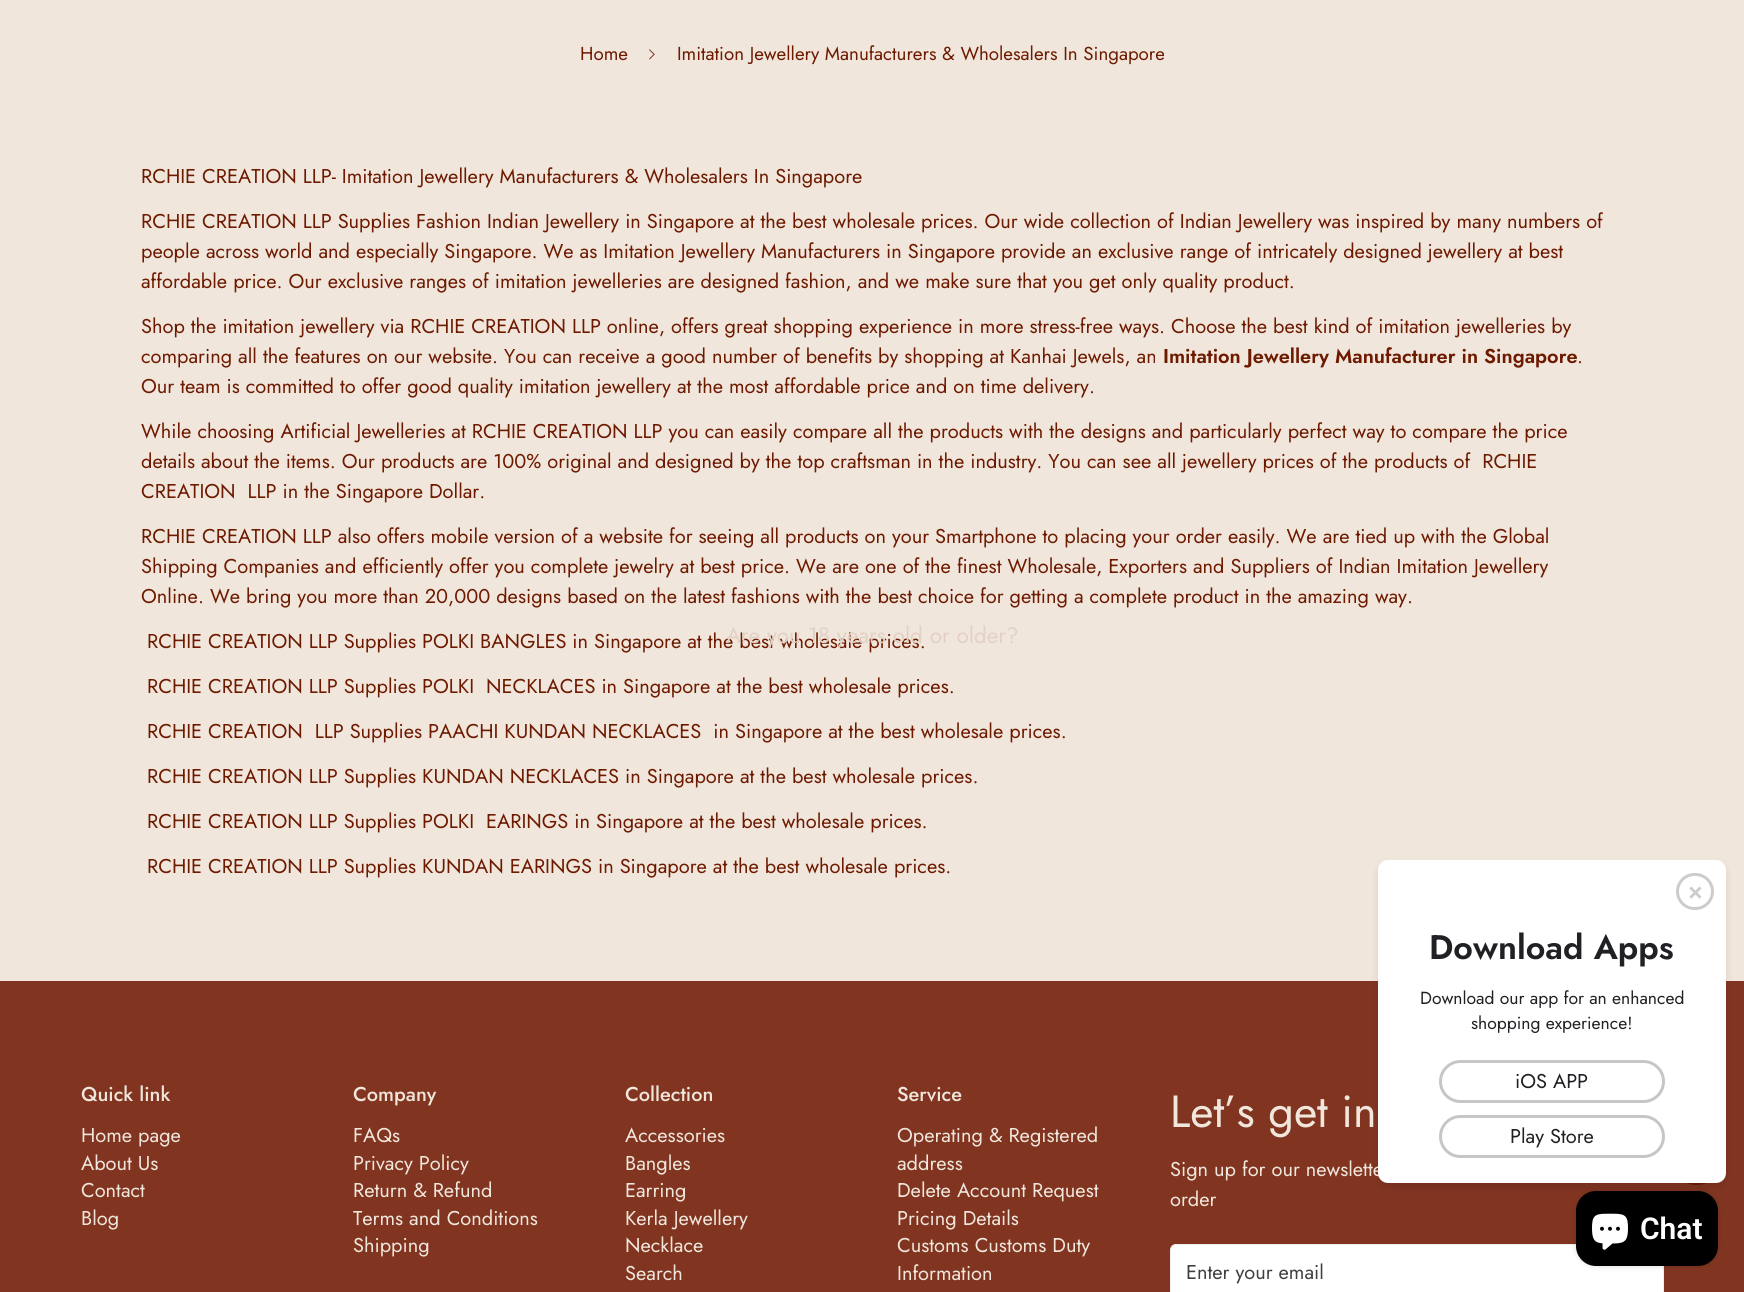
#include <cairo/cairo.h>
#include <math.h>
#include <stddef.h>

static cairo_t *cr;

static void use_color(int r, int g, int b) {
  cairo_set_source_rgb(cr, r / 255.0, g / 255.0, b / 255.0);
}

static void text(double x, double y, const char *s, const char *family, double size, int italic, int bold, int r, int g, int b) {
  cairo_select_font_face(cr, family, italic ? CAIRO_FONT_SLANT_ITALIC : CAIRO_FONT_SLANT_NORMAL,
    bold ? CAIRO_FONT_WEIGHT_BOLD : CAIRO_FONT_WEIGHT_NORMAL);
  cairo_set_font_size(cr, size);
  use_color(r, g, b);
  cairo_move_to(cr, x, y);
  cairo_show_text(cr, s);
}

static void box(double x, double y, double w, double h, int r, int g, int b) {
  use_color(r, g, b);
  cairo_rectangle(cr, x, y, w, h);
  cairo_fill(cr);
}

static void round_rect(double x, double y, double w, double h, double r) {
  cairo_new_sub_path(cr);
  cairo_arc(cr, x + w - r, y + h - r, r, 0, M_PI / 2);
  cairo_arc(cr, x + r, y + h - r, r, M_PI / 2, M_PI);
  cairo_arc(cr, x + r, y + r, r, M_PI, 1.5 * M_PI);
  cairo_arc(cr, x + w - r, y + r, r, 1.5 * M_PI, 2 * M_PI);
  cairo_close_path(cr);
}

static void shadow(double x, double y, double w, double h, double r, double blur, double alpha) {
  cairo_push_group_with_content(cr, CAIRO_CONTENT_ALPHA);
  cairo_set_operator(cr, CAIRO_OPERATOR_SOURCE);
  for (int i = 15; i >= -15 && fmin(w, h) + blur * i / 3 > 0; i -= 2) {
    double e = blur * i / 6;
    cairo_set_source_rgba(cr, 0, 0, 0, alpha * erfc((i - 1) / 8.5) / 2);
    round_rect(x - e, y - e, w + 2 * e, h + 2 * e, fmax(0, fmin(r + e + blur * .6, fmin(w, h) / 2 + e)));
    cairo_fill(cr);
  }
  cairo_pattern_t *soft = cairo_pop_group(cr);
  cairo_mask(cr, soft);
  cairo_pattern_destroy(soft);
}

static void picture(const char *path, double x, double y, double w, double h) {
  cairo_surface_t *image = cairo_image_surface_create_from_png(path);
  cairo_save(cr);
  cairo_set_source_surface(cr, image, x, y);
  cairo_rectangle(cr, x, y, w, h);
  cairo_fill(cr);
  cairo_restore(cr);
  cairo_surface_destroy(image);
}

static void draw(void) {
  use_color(240, 230, 220);
  cairo_paint(cr);
  picture("img_01.png", 649, 49, 6, 11);
  box(0, 981, 1744, 311, 129, 53, 33);
  use_color(110, 26, 0);
  cairo_arc(cr, 1696.5, 1156.5, 28, 0, 2 * M_PI);
  cairo_fill_preserve(cr);
  cairo_set_line_width(cr, 1);
  cairo_stroke(cr);
  use_color(0, 0, 0);
  shadow(1378, 865, 348, 323, 10, 4, 0.1);
  use_color(255, 255, 255);
  round_rect(1170.5, 1244.5, 493, 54, 5.5);
  cairo_fill_preserve(cr);
  use_color(238, 238, 238);
  cairo_stroke(cr);
  text(580, 60, "Home", "Jost", 18.75, 0, 0, 110, 26, 0);
  text(677, 60, "Imitation Jewellery Manufacturers & Wholesalers In Singapore", "Jost", 18.75, 0, 0, 110, 26, 0);
  text(141, 183, "RCHIE CREATION LLP- Imitation Jewellery Manufacturers & Wholesalers In Singapore", "Jost", 20, 0, 0, 110, 26, 0);
  text(141, 228, "RCHIE CREATION LLP Supplies Fashion Indian Jewellery in Singapore at the best wholesale prices. Our wide collection of Indian Jewellery was inspired by many numbers of", "Jost", 20, 0, 0, 110, 26, 0);
  text(141, 258, "people across world and especially Singapore. We as Imitation Jewellery Manufacturers in Singapore provide an exclusive range of intricately designed jewellery at best", "Jost", 20, 0, 0, 110, 26, 0);
  text(141, 288, "affordable price. Our exclusive ranges of imitation jewelleries are designed fashion, and we make sure that you get only quality product.", "Jost", 20, 0, 0, 110, 26, 0);
  text(141, 333, "Shop the imitation jewellery via RCHIE CREATION LLP online, offers great shopping experience in more stress-free ways. Choose the best kind of imitation jewelleries by", "Jost", 20, 0, 0, 110, 26, 0);
  text(141, 363, "comparing all the features on our website. You can receive a good number of benefits by shopping at Kanhai Jewels, an", "Jost", 20, 0, 0, 110, 26, 0);
  text(1163, 363, "Imitation Jewellery Manufacturer in Singapore", "Jost SemiBold", 20, 0, 0, 110, 26, 0);
  text(1577, 363, ".", "Jost", 20, 0, 0, 110, 26, 0);
  text(141, 393, "Our team is committed to offer good quality imitation jewellery at the most affordable price and on time delivery.", "Jost", 20, 0, 0, 110, 26, 0);
  text(141, 438, "While choosing Artificial Jewelleries at RCHIE CREATION LLP you can easily compare all the products with the designs and particularly perfect way to compare the price", "Jost", 20, 0, 0, 110, 26, 0);
  text(141, 468, "details about the items. Our products are 100% original and designed by the top craftsman in the industry. You can see all jewellery prices of the products of  RCHIE", "Jost", 20, 0, 0, 110, 26, 0);
  text(141, 498, "CREATION  LLP in the Singapore Dollar.", "Jost", 20, 0, 0, 110, 26, 0);
  text(141, 543, "RCHIE CREATION LLP also offers mobile version of a website for seeing all products on your Smartphone to placing your order easily. We are tied up with the Global", "Jost", 20, 0, 0, 110, 26, 0);
  text(141, 573, "Shipping Companies and efficiently offer you complete jewelry at best price. We are one of the finest Wholesale, Exporters and Suppliers of Indian Imitation Jewellery", "Jost", 20, 0, 0, 110, 26, 0);
  text(141, 603, "Online. We bring you more than 20,000 designs based on the latest fashions with the best choice for getting a complete product in the amazing way.", "Jost", 20, 0, 0, 110, 26, 0);
  text(147, 648, "RCHIE CREATION LLP Supplies POLKI BANGLES in Singapore at the best wholesale prices.", "Jost", 20, 0, 0, 110, 26, 0);
  text(147, 693, "RCHIE CREATION LLP Supplies POLKI  NECKLACES in Singapore at the best wholesale prices.", "Jost", 20, 0, 0, 110, 26, 0);
  text(147, 738, "RCHIE CREATION  LLP Supplies PAACHI KUNDAN NECKLACES  in Singapore at the best wholesale prices.", "Jost", 20, 0, 0, 110, 26, 0);
  text(147, 783, "RCHIE CREATION LLP Supplies KUNDAN NECKLACES in Singapore at the best wholesale prices.", "Jost", 20, 0, 0, 110, 26, 0);
  text(147, 828, "RCHIE CREATION LLP Supplies POLKI  EARINGS in Singapore at the best wholesale prices.", "Jost", 20, 0, 0, 110, 26, 0);
  text(147, 873, "RCHIE CREATION LLP Supplies KUNDAN EARINGS in Singapore at the best wholesale prices.", "Jost", 20, 0, 0, 110, 26, 0);
  text(726, 643, "Are you 18 years old or older?", "Jost", 22.5, 0, 0, 227, 209, 197);
  text(81, 1101, "Quick link", "Jost Medium", 20, 0, 0, 240, 230, 220);
  text(81, 1142, "Home page", "Jost", 20, 0, 0, 240, 230, 220);
  text(81, 1170, "About Us", "Jost", 20, 0, 0, 240, 230, 220);
  text(81, 1197, "Contact", "Jost", 20, 0, 0, 240, 230, 220);
  text(81, 1225, "Blog", "Jost", 20, 0, 0, 240, 230, 220);
  text(353, 1101, "Company", "Jost Medium", 20, 0, 0, 240, 230, 220);
  text(353, 1142, "FAQs", "Jost", 20, 0, 0, 240, 230, 220);
  text(353, 1170, "Privacy Policy", "Jost", 20, 0, 0, 240, 230, 220);
  text(353, 1197, "Return & Refund", "Jost", 20, 0, 0, 240, 230, 220);
  text(353, 1225, "Terms and Conditions", "Jost", 20, 0, 0, 240, 230, 220);
  text(353, 1252, "Shipping", "Jost", 20, 0, 0, 240, 230, 220);
  text(625, 1101, "Collection", "Jost Medium", 20, 0, 0, 240, 230, 220);
  text(625, 1142, "Accessories", "Jost", 20, 0, 0, 240, 230, 220);
  text(625, 1170, "Bangles", "Jost", 20, 0, 0, 240, 230, 220);
  text(625, 1197, "Earring", "Jost", 20, 0, 0, 240, 230, 220);
  text(625, 1225, "Kerla Jewellery", "Jost", 20, 0, 0, 240, 230, 220);
  text(625, 1252, "Necklace", "Jost", 20, 0, 0, 240, 230, 220);
  text(625, 1280, "Search", "Jost", 20, 0, 0, 240, 230, 220);
  text(897, 1101, "Service", "Jost Medium", 20, 0, 0, 240, 230, 220);
  text(897, 1142, "Operating & Registered", "Jost", 20, 0, 0, 240, 230, 220);
  text(897, 1170, "address", "Jost", 20, 0, 0, 240, 230, 220);
  text(897, 1197, "Delete Account Request", "Jost", 20, 0, 0, 240, 230, 220);
  text(897, 1225, "Pricing Details", "Jost", 20, 0, 0, 240, 230, 220);
  text(897, 1252, "Customs Customs Duty", "Jost", 20, 0, 0, 240, 230, 220);
  text(897, 1280, "Information", "Jost", 20, 0, 0, 240, 230, 220);
  text(1170, 1127, "Let’s get in", "Jost", 45, 0, 0, 240, 230, 220);
  text(1170, 1176, "Sign up for our newslette", "Jost", 20, 0, 0, 240, 230, 220);
  use_color(255, 255, 255);
  round_rect(1378, 860, 348, 323, 10);
  cairo_fill(cr);
  round_rect(1440.5, 1116.5, 223, 40, 20);
  use_color(198, 198, 198);
  cairo_set_line_width(cr, 3);
  cairo_stroke(cr);
  text(1510, 1143, "Play Store", "Jost", 20, 0, 0, 32, 33, 37);
  round_rect(1440.5, 1061.5, 223, 40, 20);
  use_color(198, 198, 198);
  cairo_stroke(cr);
  text(1515, 1088, "iOS APP", "Jost", 20, 0, 0, 32, 33, 37);
  text(1471, 1029, "shopping experience!", "Jost", 17.5, 0, 0, 32, 33, 37);
  text(1420, 1004, "Download our app for an enhanced", "Jost", 17.5, 0, 0, 32, 33, 37);
  text(1429, 959, "Download Apps", "Jost SemiBold", 34, 0, 0, 32, 33, 37);
  round_rect(1677.5, 874.5, 35, 34, 17);
  use_color(204, 204, 204);
  cairo_stroke(cr);
  text(1688, 899, "×", "Jost SemiBold", 25, 0, 0, 204, 204, 204);
  text(1170, 1206, "order", "Jost", 20, 0, 0, 240, 230, 220);
  text(1186, 1279, "Enter your email", "Jost", 20, 0, 0, 64, 64, 64);
  use_color(0, 0, 0);
  shadow(1576, 1191, 142, 75, 20, 3, 0.15);
  use_color(0, 0, 0);
  round_rect(1576, 1191, 142, 75, 20);
  cairo_fill(cr);
  picture("img_02.png", 1592, 1213, 36, 37);
  text(1640, 1239, "Chat", "Roboto SemiBold", 30, 0, 0, 255, 255, 255);
}

int main(void) {
  cairo_surface_t *surface = cairo_image_surface_create(CAIRO_FORMAT_RGB24, 1744, 1292);
  cr = cairo_create(surface);
  cairo_font_options_t *options = cairo_font_options_create();
  cairo_font_options_set_hint_metrics(options, CAIRO_HINT_METRICS_OFF);
  cairo_font_options_set_hint_style(options, CAIRO_HINT_STYLE_NONE);
  cairo_set_font_options(cr, options);
  cairo_set_miter_limit(cr, 4);
  draw();
  cairo_surface_write_to_png(surface, "out.png");
  cairo_font_options_destroy(options);
  cairo_destroy(cr);
  cairo_surface_destroy(surface);
  return 0;
}
